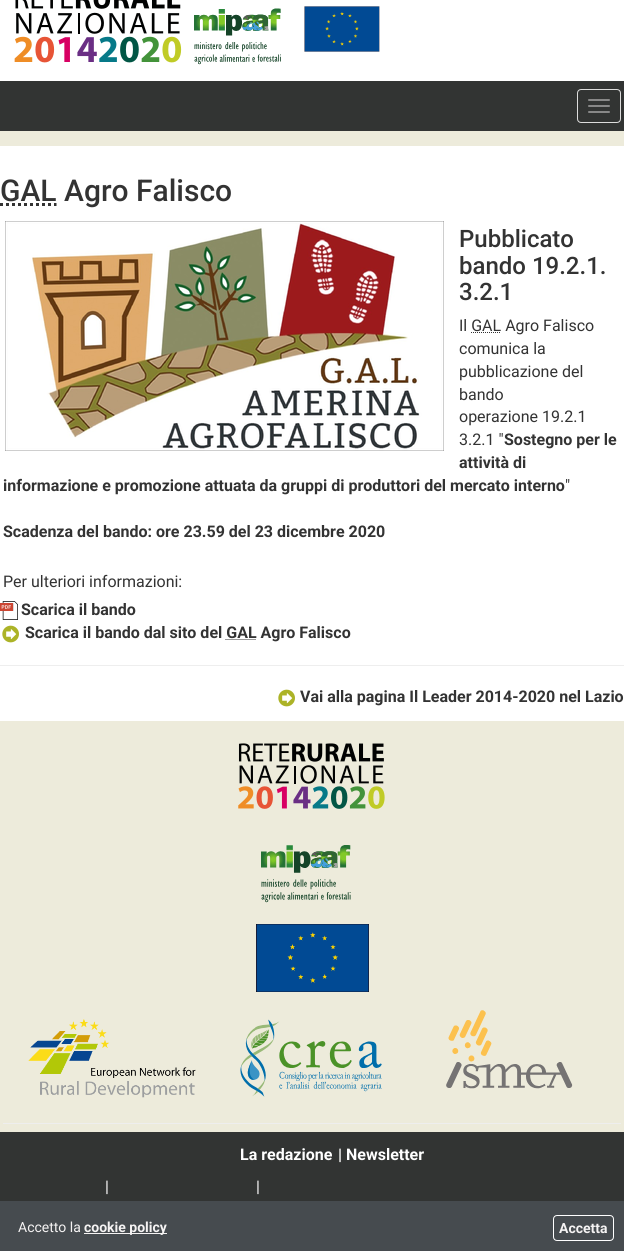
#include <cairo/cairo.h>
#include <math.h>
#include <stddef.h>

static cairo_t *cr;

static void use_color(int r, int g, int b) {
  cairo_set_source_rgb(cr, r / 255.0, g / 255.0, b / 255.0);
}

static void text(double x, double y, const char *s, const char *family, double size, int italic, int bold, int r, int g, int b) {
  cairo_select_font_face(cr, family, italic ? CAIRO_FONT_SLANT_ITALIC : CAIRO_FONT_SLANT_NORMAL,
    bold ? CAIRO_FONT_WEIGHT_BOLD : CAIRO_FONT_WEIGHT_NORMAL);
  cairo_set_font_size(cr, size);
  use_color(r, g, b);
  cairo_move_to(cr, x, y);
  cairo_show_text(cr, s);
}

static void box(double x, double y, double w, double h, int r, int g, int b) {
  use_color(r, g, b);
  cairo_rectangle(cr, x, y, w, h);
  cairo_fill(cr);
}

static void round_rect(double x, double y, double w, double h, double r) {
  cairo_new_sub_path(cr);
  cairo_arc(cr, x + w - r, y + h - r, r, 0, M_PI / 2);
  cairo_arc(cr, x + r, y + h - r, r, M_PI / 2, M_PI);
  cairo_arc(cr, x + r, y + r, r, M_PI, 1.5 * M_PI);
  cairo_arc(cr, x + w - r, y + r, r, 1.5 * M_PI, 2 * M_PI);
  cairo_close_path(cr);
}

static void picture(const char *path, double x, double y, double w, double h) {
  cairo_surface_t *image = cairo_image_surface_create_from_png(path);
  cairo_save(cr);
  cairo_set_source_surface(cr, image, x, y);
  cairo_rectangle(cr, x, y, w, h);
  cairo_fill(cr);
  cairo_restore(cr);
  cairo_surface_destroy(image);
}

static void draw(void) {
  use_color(255, 255, 255);
  cairo_paint(cr);
  picture("img_01.png", 14, 0, 168, 63);
  picture("img_02.png", 194, 8, 87, 57);
  picture("img_03.png", 304, 6, 76, 46);
  box(0, 81, 624, 50, 50, 52, 51);
  round_rect(577.5, 89.5, 43, 33, 3.5);
  use_color(221, 221, 221);
  cairo_set_line_width(cr, 1);
  cairo_stroke(cr);
  use_color(136, 136, 136);
  round_rect(588, 99, 22, 2, 1);
  cairo_fill(cr);
  round_rect(588, 105, 22, 2, 1);
  cairo_fill(cr);
  round_rect(588, 111, 22, 2, 1);
  cairo_fill(cr);
  box(0, 131, 624, 15, 237, 235, 219);
  cairo_new_path(cr);
  cairo_move_to(cr, 0, 204.5);
  cairo_line_to(cr, 56.5, 204.5);
  use_color(51, 51, 51);
  cairo_set_line_width(cr, 3);
  cairo_set_dash(cr, (double[]){3, 3}, 2, 0);
  cairo_stroke(cr);
  picture("img_04.png", 5, 221, 439, 230);
  cairo_new_path(cr);
  cairo_move_to(cr, 471, 332.5);
  cairo_line_to(cr, 501, 332.5);
  cairo_set_line_width(cr, 1);
  cairo_set_dash(cr, (double[]){1, 1}, 2, 0);
  cairo_stroke(cr);
  picture("img_05.png", 0, 601, 18, 19);
  picture("img_06.png", 2, 625, 17, 18);
  cairo_new_path(cr);
  cairo_move_to(cr, 225.5, 639.5);
  cairo_line_to(cr, 256, 639.5);
  cairo_stroke(cr);
  box(0, 665, 624, 1, 238, 238, 238);
  picture("img_06.png", 278, 689, 17, 18);
  box(0, 721, 624, 411, 237, 235, 219);
  picture("img_07.png", 238, 743, 147, 66);
  picture("img_08.png", 261, 845, 90, 58);
  picture("img_09.png", 256, 924, 113, 68);
  picture("img_10.png", 28, 1019, 168, 79);
  picture("img_11.png", 240, 1019, 142, 78);
  picture("img_12.png", 446, 1010, 127, 79);
  box(3, 1123, 618, 1, 238, 238, 238);
  box(0, 1132, 624, 69, 50, 52, 51);
  box(0, 1201, 624, 50, 70, 75, 79);
  box(84, 1233, 83, 1, 245, 243, 243);
  round_rect(553.5, 1215.5, 60, 25, 3.5);
  use_color(255, 255, 255);
  cairo_set_dash(cr, NULL, 0, 0);
  cairo_stroke(cr);
  text(0, 201, "GAL Agro Falisco", "Roboto Medium", 30, 0, 0, 51, 51, 51);
  text(459, 247, "Pubblicato", "Roboto Medium", 24, 0, 0, 51, 51, 51);
  text(459, 274, "bando 19.2.1.", "Roboto Medium", 24, 0, 0, 51, 51, 51);
  text(459, 300, "3.2.1", "Roboto Medium", 24, 0, 0, 51, 51, 51);
  text(459, 331, "Il GAL Agro Falisco", "Roboto", 16, 0, 0, 51, 51, 51);
  text(459, 354, "comunica la", "Roboto", 16, 0, 0, 51, 51, 51);
  text(459, 377, "pubblicazione del", "Roboto", 16, 0, 0, 51, 51, 51);
  text(459, 400, "bando", "Roboto", 16, 0, 0, 51, 51, 51);
  text(459, 422, "operazione 19.2.1", "Roboto", 16, 0, 0, 51, 51, 51);
  text(459, 445, "3.2.1 \"", "Roboto", 16, 0, 0, 51, 51, 51);
  text(504, 445, "Sostegno per le", "Roboto", 16, 0, 1, 51, 51, 51);
  text(459, 468, "attività di", "Roboto", 16, 0, 1, 51, 51, 51);
  text(3, 491, "informazione e promozione attuata da gruppi di produttori del mercato interno", "Roboto", 16, 0, 1, 51, 51, 51);
  text(565, 491, "\"", "Roboto", 16, 0, 0, 51, 51, 51);
  text(3, 537, "Scadenza del bando: ore 23.59 del 23 dicembre 2020", "Roboto", 16, 0, 1, 51, 51, 51);
  text(3, 587, "Per ulteriori informazioni:", "Roboto", 16, 0, 0, 51, 51, 51);
  text(21, 615, "Scarica il bando", "Roboto", 16, 0, 1, 51, 51, 51);
  text(25, 638, "Scarica il bando dal sito del GAL Agro Falisco", "Roboto", 16, 0, 1, 51, 51, 51);
  text(300, 702, "Vai alla pagina Il Leader 2014-2020 nel Lazio", "Roboto", 16, 0, 1, 51, 51, 51);
  text(240, 1160, "La redazione", "Roboto", 16, 0, 1, 255, 255, 255);
  text(338, 1160, "| Newsletter", "Roboto", 16, 0, 1, 255, 255, 255);
  text(105, 1192, "|", "Roboto", 16, 0, 0, 255, 255, 255);
  text(256, 1192, "|", "Roboto", 16, 0, 0, 255, 255, 255);
  text(18, 1232, "Accetto la", "Roboto", 14, 0, 0, 245, 243, 243);
  text(84, 1232, "cookie policy", "Roboto", 14, 0, 1, 245, 243, 243);
  text(559, 1233, "Accetta", "Roboto", 14, 0, 1, 245, 243, 243);
}

int main(void) {
  cairo_surface_t *surface = cairo_image_surface_create(CAIRO_FORMAT_RGB24, 624, 1251);
  cr = cairo_create(surface);
  cairo_font_options_t *options = cairo_font_options_create();
  cairo_font_options_set_hint_metrics(options, CAIRO_HINT_METRICS_OFF);
  cairo_font_options_set_hint_style(options, CAIRO_HINT_STYLE_NONE);
  cairo_set_font_options(cr, options);
  cairo_set_miter_limit(cr, 4);
  draw();
  cairo_surface_write_to_png(surface, "out.png");
  cairo_font_options_destroy(options);
  cairo_destroy(cr);
  cairo_surface_destroy(surface);
  return 0;
}
